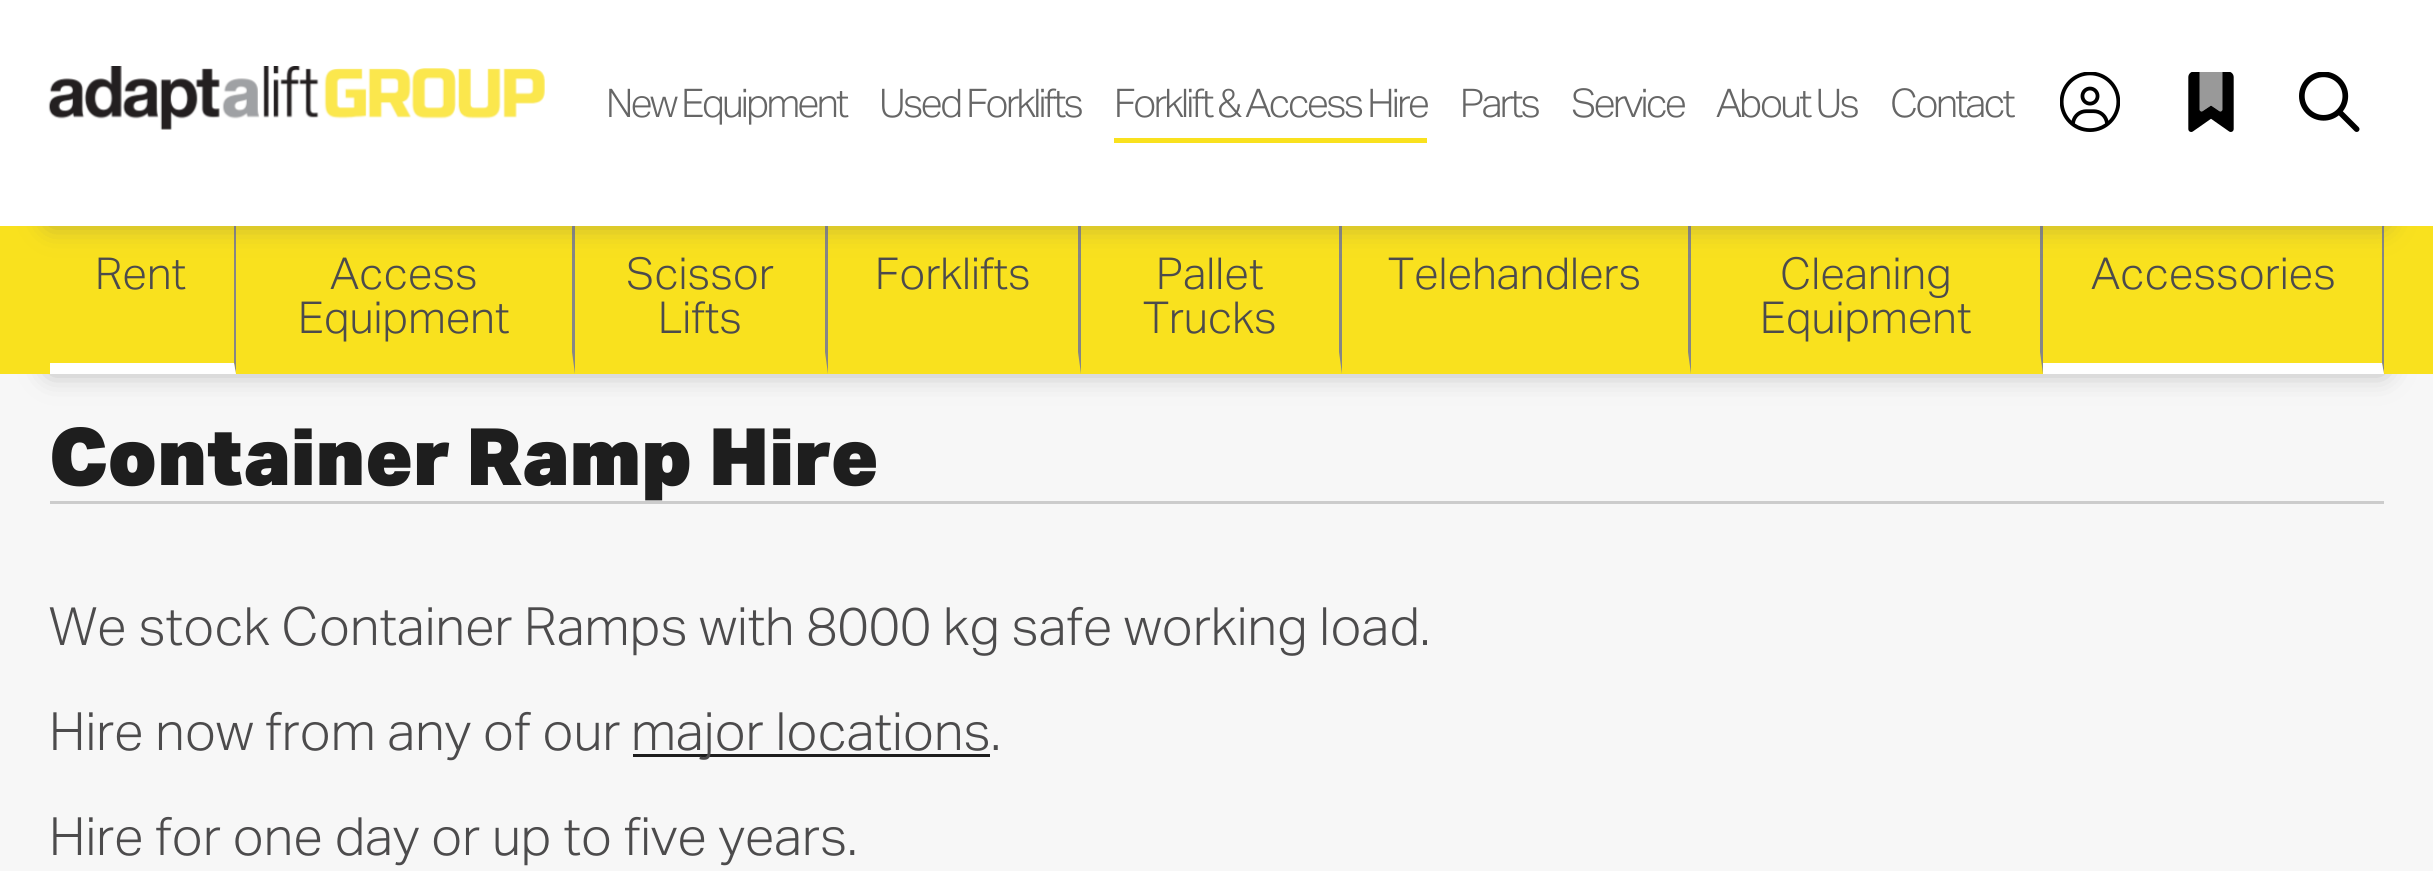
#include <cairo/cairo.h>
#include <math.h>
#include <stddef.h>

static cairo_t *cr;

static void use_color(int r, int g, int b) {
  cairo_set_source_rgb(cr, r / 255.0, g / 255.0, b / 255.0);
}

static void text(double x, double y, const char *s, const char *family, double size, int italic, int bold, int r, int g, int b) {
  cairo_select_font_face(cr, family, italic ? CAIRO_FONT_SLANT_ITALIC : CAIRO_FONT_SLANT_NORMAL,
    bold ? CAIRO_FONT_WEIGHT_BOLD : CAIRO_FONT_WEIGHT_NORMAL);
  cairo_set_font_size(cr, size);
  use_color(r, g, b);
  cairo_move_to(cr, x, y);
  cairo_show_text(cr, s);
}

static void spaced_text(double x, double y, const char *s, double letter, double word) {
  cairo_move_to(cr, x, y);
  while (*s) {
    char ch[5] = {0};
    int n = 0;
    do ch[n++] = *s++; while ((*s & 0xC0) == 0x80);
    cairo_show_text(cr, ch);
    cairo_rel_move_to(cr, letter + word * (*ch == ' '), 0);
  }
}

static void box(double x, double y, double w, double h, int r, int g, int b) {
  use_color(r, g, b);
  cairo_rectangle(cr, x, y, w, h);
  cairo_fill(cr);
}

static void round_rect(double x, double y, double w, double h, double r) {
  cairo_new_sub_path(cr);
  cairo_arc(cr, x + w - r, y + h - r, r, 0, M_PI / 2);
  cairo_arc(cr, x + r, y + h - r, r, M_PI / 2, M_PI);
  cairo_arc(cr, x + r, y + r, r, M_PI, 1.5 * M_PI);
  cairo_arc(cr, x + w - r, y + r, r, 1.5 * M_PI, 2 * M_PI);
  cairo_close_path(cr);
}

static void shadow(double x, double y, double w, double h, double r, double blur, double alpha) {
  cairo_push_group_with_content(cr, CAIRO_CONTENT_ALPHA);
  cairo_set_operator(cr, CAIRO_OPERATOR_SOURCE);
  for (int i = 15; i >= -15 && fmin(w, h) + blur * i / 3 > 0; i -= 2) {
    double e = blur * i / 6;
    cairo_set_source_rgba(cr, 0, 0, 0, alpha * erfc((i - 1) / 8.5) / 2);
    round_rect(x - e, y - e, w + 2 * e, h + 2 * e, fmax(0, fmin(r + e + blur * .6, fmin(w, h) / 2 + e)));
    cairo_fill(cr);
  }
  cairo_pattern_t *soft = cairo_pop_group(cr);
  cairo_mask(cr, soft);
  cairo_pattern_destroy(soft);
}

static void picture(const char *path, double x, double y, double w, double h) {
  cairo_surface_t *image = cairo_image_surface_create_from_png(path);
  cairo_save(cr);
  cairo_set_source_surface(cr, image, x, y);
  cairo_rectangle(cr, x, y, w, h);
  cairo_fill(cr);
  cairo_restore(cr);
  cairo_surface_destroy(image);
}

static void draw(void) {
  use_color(247, 247, 247);
  cairo_paint(cr);
  use_color(97, 97, 97);
  shadow(50, 322, 2334, 49, 0, 14, 0.5);
  box(0, 226, 2433, 148, 249, 225, 30);
  use_color(134, 134, 134);
  cairo_new_path(cr);
  cairo_move_to(cr, 236, 226);
  cairo_line_to(cr, 236, 374);
  cairo_line_to(cr, 234, 363);
  cairo_line_to(cr, 234, 226);
  cairo_close_path(cr);
  cairo_fill(cr);
  cairo_new_path(cr);
  cairo_move_to(cr, 575, 226);
  cairo_line_to(cr, 575, 374);
  cairo_line_to(cr, 572, 352);
  cairo_line_to(cr, 572, 226);
  cairo_close_path(cr);
  cairo_fill(cr);
  cairo_new_path(cr);
  cairo_move_to(cr, 828, 226);
  cairo_line_to(cr, 828, 374);
  cairo_line_to(cr, 825, 352);
  cairo_line_to(cr, 825, 226);
  cairo_close_path(cr);
  cairo_fill(cr);
  cairo_new_path(cr);
  cairo_move_to(cr, 1081, 226);
  cairo_line_to(cr, 1081, 374);
  cairo_line_to(cr, 1078, 352);
  cairo_line_to(cr, 1078, 226);
  cairo_close_path(cr);
  cairo_fill(cr);
  cairo_new_path(cr);
  cairo_move_to(cr, 1342, 226);
  cairo_line_to(cr, 1342, 374);
  cairo_line_to(cr, 1339, 352);
  cairo_line_to(cr, 1339, 226);
  cairo_close_path(cr);
  cairo_fill(cr);
  cairo_new_path(cr);
  cairo_move_to(cr, 1691, 226);
  cairo_line_to(cr, 1691, 374);
  cairo_line_to(cr, 1688, 352);
  cairo_line_to(cr, 1688, 226);
  cairo_close_path(cr);
  cairo_fill(cr);
  cairo_new_path(cr);
  cairo_move_to(cr, 2043, 226);
  cairo_line_to(cr, 2043, 374);
  cairo_line_to(cr, 2040, 352);
  cairo_line_to(cr, 2040, 226);
  cairo_close_path(cr);
  cairo_fill(cr);
  cairo_new_path(cr);
  cairo_move_to(cr, 2384, 226);
  cairo_line_to(cr, 2384, 374);
  cairo_line_to(cr, 2382, 363);
  cairo_line_to(cr, 2382, 226);
  cairo_close_path(cr);
  cairo_fill(cr);
  use_color(97, 97, 97);
  shadow(50, 96, 2334, 127, 0, 14, 0.5);
  box(0, 0, 2433, 226, 255, 255, 255);
  picture("img_01.png", 48, 66, 497, 64);
  box(1114, 138, 313, 5, 249, 225, 30);
  picture("img_02.png", 2060, 72, 60, 60);
  picture("img_03.png", 2188, 72, 46, 60);
  picture("img_04.png", 2299, 72, 61, 60);
  use_color(255, 255, 255);
  cairo_new_path(cr);
  cairo_move_to(cr, 236, 374);
  cairo_line_to(cr, 50, 374);
  cairo_line_to(cr, 50, 363);
  cairo_line_to(cr, 234, 363);
  cairo_close_path(cr);
  cairo_fill(cr);
  cairo_new_path(cr);
  cairo_move_to(cr, 2384, 374);
  cairo_line_to(cr, 2043, 374);
  cairo_line_to(cr, 2043, 363);
  cairo_line_to(cr, 2382, 363);
  cairo_close_path(cr);
  cairo_fill(cr);
  box(50, 501, 2334, 3, 204, 204, 204);
  box(633, 754, 357, 3, 30, 30, 30);
  cairo_select_font_face(cr, "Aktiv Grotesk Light", CAIRO_FONT_SLANT_NORMAL, CAIRO_FONT_WEIGHT_NORMAL);
  cairo_set_font_size(cr, 39.5);
  use_color(102, 102, 102);
  spaced_text(606, 117, "New Equipment", -2.75, 0);
  spaced_text(879, 117, "Used Forklifts", -2.75, 0);
  spaced_text(1114, 117, "Forklift & Access Hire", -2.75, 0);
  spaced_text(1460, 117, "Parts", -2.75, 0);
  spaced_text(1571, 117, "Service", -2.75, 0);
  spaced_text(1716, 117, "About Us", -2.75, 0);
  spaced_text(1890, 117, "Contact", -2.75, 0);
  text(95, 289, "Rent", "Aktiv Grotesk Light", 44, 0, 0, 76, 75, 76);
  text(330, 289, "Access", "Aktiv Grotesk Light", 44, 0, 0, 76, 75, 76);
  text(298, 333, "Equipment", "Aktiv Grotesk Light", 44, 0, 0, 76, 75, 76);
  text(626, 289, "Scissor", "Aktiv Grotesk Light", 44, 0, 0, 76, 75, 76);
  text(658, 333, "Lifts", "Aktiv Grotesk Light", 44, 0, 0, 76, 75, 76);
  text(875, 289, "Forklifts", "Aktiv Grotesk Light", 44, 0, 0, 76, 75, 76);
  text(1156, 289, "Pallet", "Aktiv Grotesk Light", 44, 0, 0, 76, 75, 76);
  text(1143, 333, "Trucks", "Aktiv Grotesk Light", 44, 0, 0, 76, 75, 76);
  text(1388, 289, "Telehandlers", "Aktiv Grotesk Light", 44, 0, 0, 76, 75, 76);
  text(1780, 289, "Cleaning", "Aktiv Grotesk Light", 44, 0, 0, 76, 75, 76);
  text(1760, 333, "Equipment", "Aktiv Grotesk Light", 44, 0, 0, 76, 75, 76);
  text(2091, 289, "Accessories", "Aktiv Grotesk Light", 44, 0, 0, 76, 75, 76);
  text(49, 485, "Container Ramp Hire", "Aktiv Grotesk Black", 79.25, 0, 0, 30, 30, 30);
  text(49, 645, "We stock Container Ramps with 8000 kg safe working load.", "Aktiv Grotesk Light", 52.8, 0, 0, 76, 75, 76);
  text(49, 750, "Hire now from any of our", "Aktiv Grotesk Light", 52.8, 0, 0, 76, 75, 76);
  text(631, 750, "major locations.", "Aktiv Grotesk Light", 52.8, 0, 0, 76, 75, 76);
  text(49, 855, "Hire for one day or up to five years.", "Aktiv Grotesk Light", 52.8, 0, 0, 76, 75, 76);
}

int main(void) {
  cairo_surface_t *surface = cairo_image_surface_create(CAIRO_FORMAT_RGB24, 2433, 871);
  cr = cairo_create(surface);
  cairo_font_options_t *options = cairo_font_options_create();
  cairo_font_options_set_hint_metrics(options, CAIRO_HINT_METRICS_OFF);
  cairo_font_options_set_hint_style(options, CAIRO_HINT_STYLE_NONE);
  cairo_set_font_options(cr, options);
  cairo_set_miter_limit(cr, 4);
  draw();
  cairo_surface_write_to_png(surface, "out.png");
  cairo_font_options_destroy(options);
  cairo_destroy(cr);
  cairo_surface_destroy(surface);
  return 0;
}
